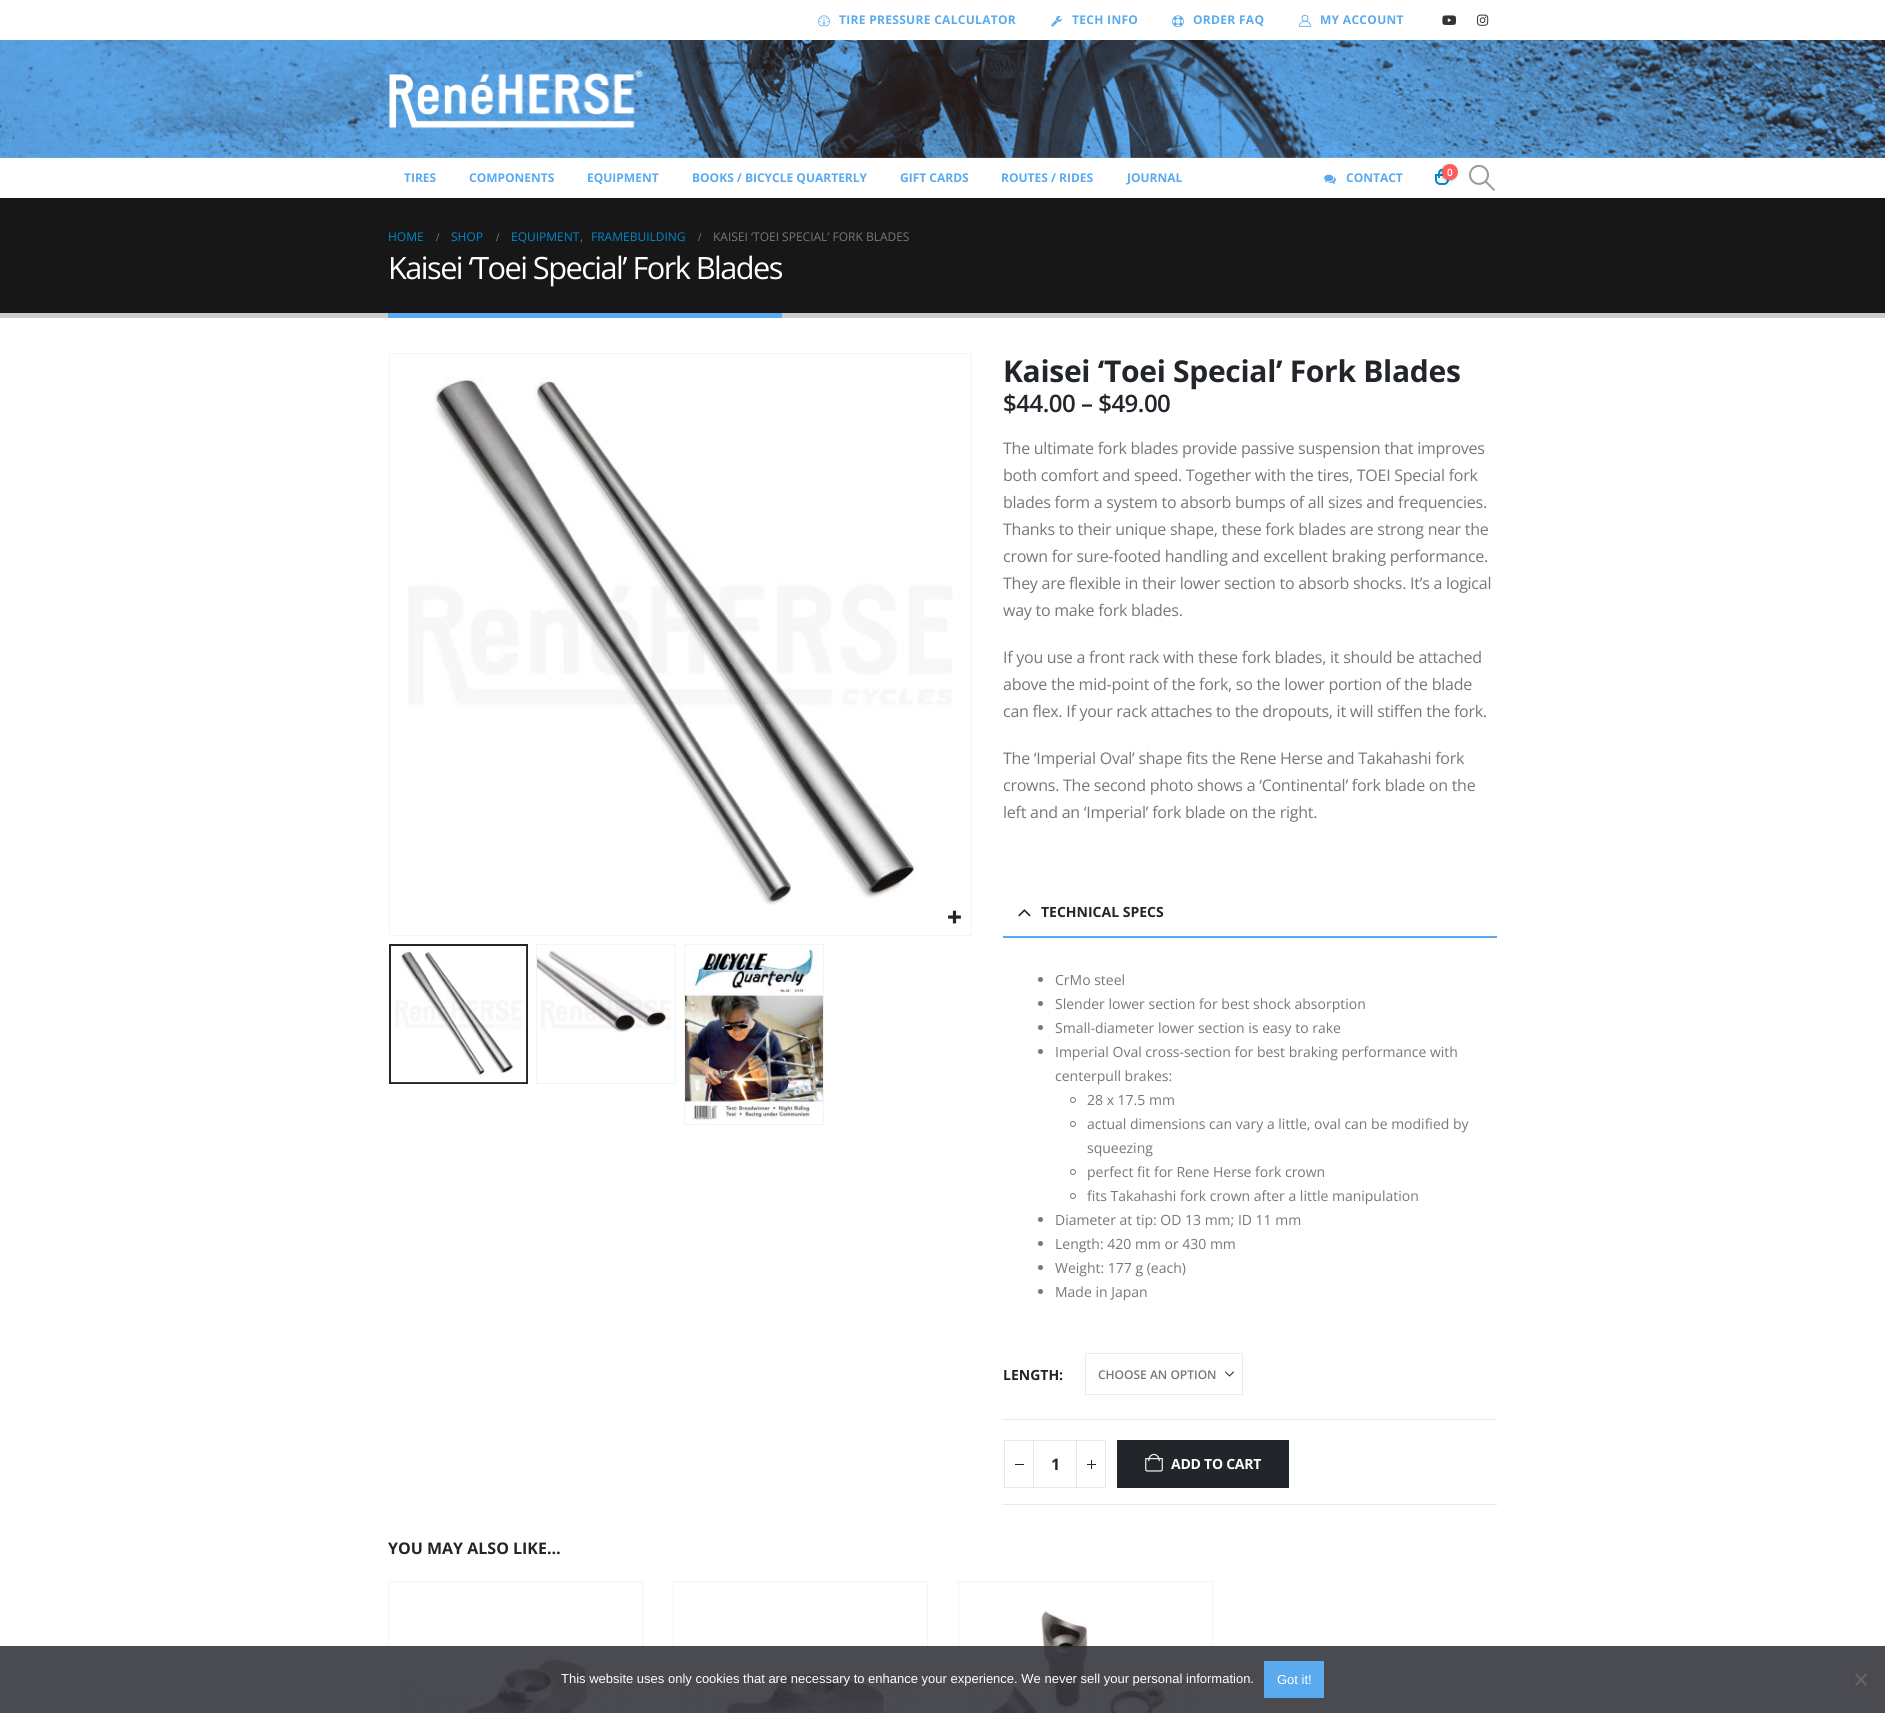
#include <cairo/cairo.h>
#include <math.h>
#include <stddef.h>

static cairo_t *cr;

static void use_color(int r, int g, int b) {
  cairo_set_source_rgb(cr, r / 255.0, g / 255.0, b / 255.0);
}

static void text(double x, double y, const char *s, const char *family, double size, int italic, int bold, int r, int g, int b) {
  cairo_select_font_face(cr, family, italic ? CAIRO_FONT_SLANT_ITALIC : CAIRO_FONT_SLANT_NORMAL,
    bold ? CAIRO_FONT_WEIGHT_BOLD : CAIRO_FONT_WEIGHT_NORMAL);
  cairo_set_font_size(cr, size);
  use_color(r, g, b);
  cairo_move_to(cr, x, y);
  cairo_show_text(cr, s);
}

static void spaced_text(double x, double y, const char *s, double letter, double word) {
  cairo_move_to(cr, x, y);
  while (*s) {
    char ch[5] = {0};
    int n = 0;
    do ch[n++] = *s++; while ((*s & 0xC0) == 0x80);
    cairo_show_text(cr, ch);
    cairo_rel_move_to(cr, letter + word * (*ch == ' '), 0);
  }
}

static void box(double x, double y, double w, double h, int r, int g, int b) {
  use_color(r, g, b);
  cairo_rectangle(cr, x, y, w, h);
  cairo_fill(cr);
}

static void round_rect(double x, double y, double w, double h, double r) {
  cairo_new_sub_path(cr);
  cairo_arc(cr, x + w - r, y + h - r, r, 0, M_PI / 2);
  cairo_arc(cr, x + r, y + h - r, r, M_PI / 2, M_PI);
  cairo_arc(cr, x + r, y + r, r, M_PI, 1.5 * M_PI);
  cairo_arc(cr, x + w - r, y + r, r, 1.5 * M_PI, 2 * M_PI);
  cairo_close_path(cr);
}

static void shadow(double x, double y, double w, double h, double r, double blur, double alpha) {
  cairo_push_group_with_content(cr, CAIRO_CONTENT_ALPHA);
  cairo_set_operator(cr, CAIRO_OPERATOR_SOURCE);
  for (int i = 15; i >= -15 && fmin(w, h) + blur * i / 3 > 0; i -= 2) {
    double e = blur * i / 6;
    cairo_set_source_rgba(cr, 0, 0, 0, alpha * erfc((i - 1) / 8.5) / 2);
    round_rect(x - e, y - e, w + 2 * e, h + 2 * e, fmax(0, fmin(r + e + blur * .6, fmin(w, h) / 2 + e)));
    cairo_fill(cr);
  }
  cairo_pattern_t *soft = cairo_pop_group(cr);
  cairo_mask(cr, soft);
  cairo_pattern_destroy(soft);
}

static void picture(const char *path, double x, double y, double w, double h) {
  cairo_surface_t *image = cairo_image_surface_create_from_png(path);
  cairo_save(cr);
  cairo_set_source_surface(cr, image, x, y);
  cairo_rectangle(cr, x, y, w, h);
  cairo_fill(cr);
  cairo_restore(cr);
  cairo_surface_destroy(image);
}

static void draw(void) {
  use_color(255, 255, 255);
  cairo_paint(cr);
  picture("img_01.png", 818, 15, 12, 12);
  picture("img_02.png", 1051, 15, 11, 12);
  picture("img_03.png", 1172, 15, 12, 13);
  picture("img_04.png", 1299, 14, 12, 13);
  picture("img_05.png", 1442, 15, 15, 10);
  picture("img_06.png", 1477, 14, 12, 12);
  picture("img_07.png", 0, 40, 1885, 118);
  picture("img_08.png", 389, 70, 254, 59);
  picture("img_09.png", 1324, 174, 12, 10);
  cairo_new_path(cr);
  cairo_move_to(cr, 1436, 175);
  cairo_line_to(cr, 1448, 175);
  cairo_line_to(cr, 1448, 180);
  cairo_curve_to(cr, 1448, 182, 1446, 184, 1444, 184);
  cairo_line_to(cr, 1440, 184);
  cairo_curve_to(cr, 1438, 184, 1436, 182, 1436, 180);
  cairo_close_path(cr);
  use_color(0, 136, 204);
  cairo_stroke(cr);
  cairo_set_fill_rule(cr, CAIRO_FILL_RULE_EVEN_ODD);
  cairo_new_path(cr);
  cairo_move_to(cr, 1442, 169);
  cairo_curve_to(cr, 1447, 169, 1446, 175, 1446, 178);
  cairo_line_to(cr, 1438, 178);
  cairo_curve_to(cr, 1438, 175, 1437, 169, 1442, 169);
  cairo_close_path(cr);
  cairo_move_to(cr, 1442, 171);
  cairo_curve_to(cr, 1445, 171, 1444, 176, 1444, 178);
  cairo_line_to(cr, 1440, 178);
  cairo_curve_to(cr, 1440, 176, 1439, 171, 1442, 171);
  cairo_close_path(cr);
  cairo_fill(cr);
  use_color(0, 0, 0);
  shadow(1441, 165, 16, 16, 8, 1, 0.3);
  use_color(255, 91, 91);
  cairo_arc(cr, 1450, 172, 8, 0, 2 * M_PI);
  cairo_fill(cr);
  picture("img_10.png", 1469, 164, 26, 27);
  box(0, 198, 1885, 115, 23, 23, 23);
  box(0, 313, 1885, 5, 204, 204, 204);
  box(388, 313, 394, 5, 90, 170, 240);
  cairo_rectangle(cr, 389.5, 353.5, 582, 582);
  use_color(244, 244, 244);
  cairo_set_line_width(cr, 1);
  cairo_stroke(cr);
  picture("img_11.png", 408, 378, 545, 528);
  picture("img_12.png", 948, 910, 13, 14);
  cairo_rectangle(cr, 390, 945, 137, 138);
  use_color(34, 37, 41);
  cairo_set_line_width(cr, 2);
  cairo_stroke(cr);
  picture("img_13.png", 391, 946, 136, 137);
  cairo_rectangle(cr, 536.5, 944.5, 139, 139);
  use_color(244, 244, 244);
  cairo_set_line_width(cr, 1);
  cairo_stroke(cr);
  picture("img_14.png", 537, 950, 134, 83);
  cairo_rectangle(cr, 684.5, 944.5, 139, 180);
  cairo_stroke(cr);
  picture("img_15.png", 685, 945, 138, 176);
  box(1003, 936, 494, 2, 90, 170, 240);
  picture("img_16.png", 1018, 909, 13, 8);
  use_color(119, 119, 119);
  cairo_arc(cr, 1040.5, 979.5, 2.5, 0, 2 * M_PI);
  cairo_fill(cr);
  cairo_arc(cr, 1040.5, 1003.5, 2.5, 0, 2 * M_PI);
  cairo_fill(cr);
  cairo_arc(cr, 1040.5, 1027.5, 2.5, 0, 2 * M_PI);
  cairo_fill(cr);
  cairo_arc(cr, 1040.5, 1051.5, 2.5, 0, 2 * M_PI);
  cairo_fill(cr);
  cairo_arc(cr, 1073, 1100, 2.5, 0, 2 * M_PI);
  cairo_stroke(cr);
  cairo_arc(cr, 1073, 1124, 2.5, 0, 2 * M_PI);
  cairo_stroke(cr);
  cairo_arc(cr, 1073, 1172, 2.5, 0, 2 * M_PI);
  cairo_stroke(cr);
  cairo_arc(cr, 1073, 1196, 2.5, 0, 2 * M_PI);
  cairo_stroke(cr);
  cairo_arc(cr, 1040.5, 1219.5, 2.5, 0, 2 * M_PI);
  cairo_fill(cr);
  cairo_arc(cr, 1040.5, 1243.5, 2.5, 0, 2 * M_PI);
  cairo_fill(cr);
  cairo_arc(cr, 1040.5, 1267.5, 2.5, 0, 2 * M_PI);
  cairo_fill(cr);
  cairo_arc(cr, 1040.5, 1291.5, 2.5, 0, 2 * M_PI);
  cairo_fill(cr);
  picture("img_17.png", 1225, 1371, 9, 6);
  cairo_rectangle(cr, 1085.5, 1353.5, 157, 41);
  use_color(235, 235, 235);
  cairo_stroke(cr);
  box(1003, 1419, 494, 1, 231, 231, 231);
  box(1003, 1504, 494, 1, 231, 231, 231);
  box(1033, 1440, 44, 1, 231, 231, 231);
  box(1033, 1487, 44, 1, 231, 231, 231);
  cairo_rectangle(cr, 1004.5, 1440.5, 29, 47);
  cairo_stroke(cr);
  box(1015, 1464, 9, 1, 34, 37, 41);
  cairo_rectangle(cr, 1076.5, 1440.5, 29, 47);
  use_color(231, 231, 231);
  cairo_stroke(cr);
  box(1087, 1464, 9, 1, 34, 37, 41);
  box(1091, 1460, 1, 9, 34, 37, 41);
  box(1117, 1440, 172, 48, 34, 37, 41);
  picture("img_18.png", 1145, 1453, 18, 19);
  cairo_rectangle(cr, 388.5, 1581.5, 254, 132);
  use_color(244, 244, 244);
  cairo_stroke(cr);
  picture("img_19.png", 397, 1657, 237, 56);
  cairo_rectangle(cr, 673.5, 1581.5, 254, 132);
  cairo_stroke(cr);
  picture("img_20.png", 682, 1671, 237, 42);
  cairo_rectangle(cr, 958.5, 1581.5, 254, 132);
  cairo_stroke(cr);
  picture("img_21.png", 967, 1609, 237, 104);
  cairo_set_source_rgba(cr, 0.196, 0.196, 0.227, 0.88);
  cairo_rectangle(cr, 0, 1646, 1885, 67);
  cairo_fill(cr);
  box(1264, 1661, 60, 37, 90, 170, 240);
  use_color(101, 101, 105);
  cairo_set_fill_rule(cr, CAIRO_FILL_RULE_WINDING);
  cairo_new_path(cr);
  cairo_move_to(cr, 1865.5, 1673.5);
  cairo_line_to(cr, 1867, 1675);
  cairo_line_to(cr, 1856.5, 1686);
  cairo_line_to(cr, 1855, 1684.5);
  cairo_close_path(cr);
  cairo_fill(cr);
  cairo_new_path(cr);
  cairo_move_to(cr, 1855, 1675);
  cairo_line_to(cr, 1856.5, 1673.5);
  cairo_line_to(cr, 1867, 1684.5);
  cairo_line_to(cr, 1865.5, 1686);
  cairo_close_path(cr);
  cairo_fill(cr);
  cairo_select_font_face(cr, "Open Sans", CAIRO_FONT_SLANT_NORMAL, CAIRO_FONT_WEIGHT_BOLD);
  cairo_set_font_size(cr, 12);
  use_color(90, 170, 240);
  spaced_text(839, 24, "TIRE PRESSURE CALCULATOR", 0.3, 0);
  spaced_text(1072, 24, "TECH INFO", 0.3, 0);
  spaced_text(1193, 24, "ORDER FAQ", 0.3, 0);
  spaced_text(1320, 24, "MY ACCOUNT", 0.3, 0);
  text(404, 182, "TIRES", "Open Sans", 12, 0, 1, 90, 170, 240);
  text(469, 182, "COMPONENTS", "Open Sans", 12, 0, 1, 90, 170, 240);
  text(587, 182, "EQUIPMENT", "Open Sans", 12, 0, 1, 90, 170, 240);
  text(692, 182, "BOOKS / BICYCLE QUARTERLY", "Open Sans", 12, 0, 1, 90, 170, 240);
  text(900, 182, "GIFT CARDS", "Open Sans", 12, 0, 1, 90, 170, 240);
  text(1001, 182, "ROUTES / RIDES", "Open Sans", 12, 0, 1, 90, 170, 240);
  text(1127, 182, "JOURNAL", "Open Sans", 12, 0, 1, 90, 170, 240);
  text(1346, 182, "CONTACT", "Open Sans", 12, 0, 1, 90, 170, 240);
  text(1447, 176, "0", "Open Sans SemiBold", 10, 0, 0, 255, 255, 255);
  text(388, 241, "HOME", "Open Sans", 12, 0, 0, 0, 136, 204);
  text(436, 241, "/", "Liberation Serif", 12, 0, 1, 119, 119, 119);
  text(451, 241, "SHOP", "Open Sans", 12, 0, 0, 0, 136, 204);
  text(496, 241, "/", "Liberation Serif", 12, 0, 1, 119, 119, 119);
  text(511, 241, "EQUIPMENT", "Open Sans", 12, 0, 0, 0, 136, 204);
  text(580, 241, ",", "Open Sans", 12, 0, 0, 119, 119, 119);
  text(591, 241, "FRAMEBUILDING", "Open Sans", 12, 0, 0, 0, 136, 204);
  text(698, 241, "/", "Liberation Serif", 12, 0, 1, 119, 119, 119);
  text(713, 241, "KAISEI ‘TOEI SPECIAL’ FORK BLADES", "Open Sans", 12, 0, 0, 119, 119, 119);
  cairo_set_font_size(cr, 30.75);
  use_color(255, 255, 255);
  spaced_text(388, 279, "Kaisei ‘Toei Special’ Fork Blades", -1.55, 0);
  cairo_select_font_face(cr, "Open Sans", CAIRO_FONT_SLANT_NORMAL, CAIRO_FONT_WEIGHT_BOLD);
  cairo_set_font_size(cr, 30);
  use_color(34, 37, 41);
  spaced_text(1003, 382, "Kaisei ‘Toei Special’ Fork Blades", -0.3, 0);
  cairo_select_font_face(cr, "Open Sans SemiBold", CAIRO_FONT_SLANT_NORMAL, CAIRO_FONT_WEIGHT_NORMAL);
  cairo_set_font_size(cr, 24);
  spaced_text(1003, 412, "$44.00 – $49.00", -0.5, 0);
  cairo_select_font_face(cr, "Open Sans", CAIRO_FONT_SLANT_NORMAL, CAIRO_FONT_WEIGHT_NORMAL);
  cairo_set_font_size(cr, 16);
  use_color(119, 119, 119);
  spaced_text(1003, 454, "The ultimate fork blades provide passive suspension that improves", -0.25, 0);
  spaced_text(1003, 481, "both comfort and speed. Together with the tires, TOEI Special fork", -0.25, 0);
  spaced_text(1003, 508, "blades form a system to absorb bumps of all sizes and frequencies.", -0.25, 0);
  spaced_text(1003, 535, "Thanks to their unique shape, these fork blades are strong near the", -0.25, 0);
  spaced_text(1003, 562, "crown for sure-footed handling and excellent braking performance.", -0.25, 0);
  spaced_text(1003, 589, "They are flexible in their lower section to absorb shocks. It’s a logical", -0.25, 0);
  spaced_text(1003, 616, "way to make fork blades.", -0.25, 0);
  spaced_text(1003, 663, "If you use a front rack with these fork blades, it should be attached", -0.25, 0);
  spaced_text(1003, 690, "above the mid-point of the fork, so the lower portion of the blade", -0.25, 0);
  spaced_text(1003, 717, "can flex. If your rack attaches to the dropouts, it will stiffen the fork.", -0.25, 0);
  spaced_text(1003, 764, "The ‘Imperial Oval’ shape fits the Rene Herse and Takahashi fork", -0.25, 0);
  spaced_text(1003, 791, "crowns. The second photo shows a ‘Continental’ fork blade on the", -0.25, 0);
  spaced_text(1003, 818, "left and an ‘Imperial’ fork blade on the right.", -0.25, 0);
  text(1041, 917, "TECHNICAL SPECS", "Open Sans", 14, 0, 1, 34, 37, 41);
  text(1055, 985, "CrMo steel", "Open Sans", 14, 0, 0, 119, 119, 119);
  text(1055, 1009, "Slender lower section for best shock absorption", "Open Sans", 14, 0, 0, 119, 119, 119);
  text(1055, 1033, "Small-diameter lower section is easy to rake", "Open Sans", 14, 0, 0, 119, 119, 119);
  text(1055, 1057, "Imperial Oval cross-section for best braking performance with", "Open Sans", 14, 0, 0, 119, 119, 119);
  text(1055, 1081, "centerpull brakes:", "Open Sans", 14, 0, 0, 119, 119, 119);
  text(1087, 1105, "28 x 17.5 mm", "Open Sans", 14, 0, 0, 119, 119, 119);
  text(1087, 1129, "actual dimensions can vary a little, oval can be modified by", "Open Sans", 14, 0, 0, 119, 119, 119);
  text(1087, 1153, "squeezing", "Open Sans", 14, 0, 0, 119, 119, 119);
  text(1087, 1177, "perfect fit for Rene Herse fork crown", "Open Sans", 14, 0, 0, 119, 119, 119);
  text(1087, 1201, "fits Takahashi fork crown after a little manipulation", "Open Sans", 14, 0, 0, 119, 119, 119);
  text(1055, 1225, "Diameter at tip: OD 13 mm; ID 11 mm", "Open Sans", 14, 0, 0, 119, 119, 119);
  text(1055, 1249, "Length: 420 mm or 430 mm", "Open Sans", 14, 0, 0, 119, 119, 119);
  text(1055, 1273, "Weight: 177 g (each)", "Open Sans", 14, 0, 0, 119, 119, 119);
  text(1055, 1297, "Made in Japan", "Open Sans", 14, 0, 0, 119, 119, 119);
  text(1003, 1380, "LENGTH:", "Open Sans", 14, 0, 1, 34, 37, 41);
  text(1098, 1379, "CHOOSE AN OPTION", "Open Sans SemiBold", 12, 0, 0, 119, 119, 119);
  text(1051, 1470, "1", "Open Sans", 16, 0, 1, 34, 37, 41);
  cairo_set_font_size(cr, 14);
  use_color(255, 255, 255);
  spaced_text(1171, 1469, "ADD TO CART", -0.25, 0);
  text(388, 1554, "YOU MAY ALSO LIKE…", "Open Sans", 16, 0, 1, 34, 37, 41);
  text(561, 1683, "This website uses only cookies that are necessary to enhance your experience. We never sell your personal information.", "Liberation Sans", 13, 0, 0, 255, 255, 255);
  text(1277, 1684, "Got it!", "Liberation Sans", 13, 0, 0, 255, 255, 255);
}

int main(void) {
  cairo_surface_t *surface = cairo_image_surface_create(CAIRO_FORMAT_RGB24, 1885, 1713);
  cr = cairo_create(surface);
  cairo_font_options_t *options = cairo_font_options_create();
  cairo_font_options_set_hint_metrics(options, CAIRO_HINT_METRICS_OFF);
  cairo_font_options_set_hint_style(options, CAIRO_HINT_STYLE_NONE);
  cairo_set_font_options(cr, options);
  cairo_set_miter_limit(cr, 4);
  draw();
  cairo_surface_write_to_png(surface, "out.png");
  cairo_font_options_destroy(options);
  cairo_destroy(cr);
  cairo_surface_destroy(surface);
  return 0;
}
